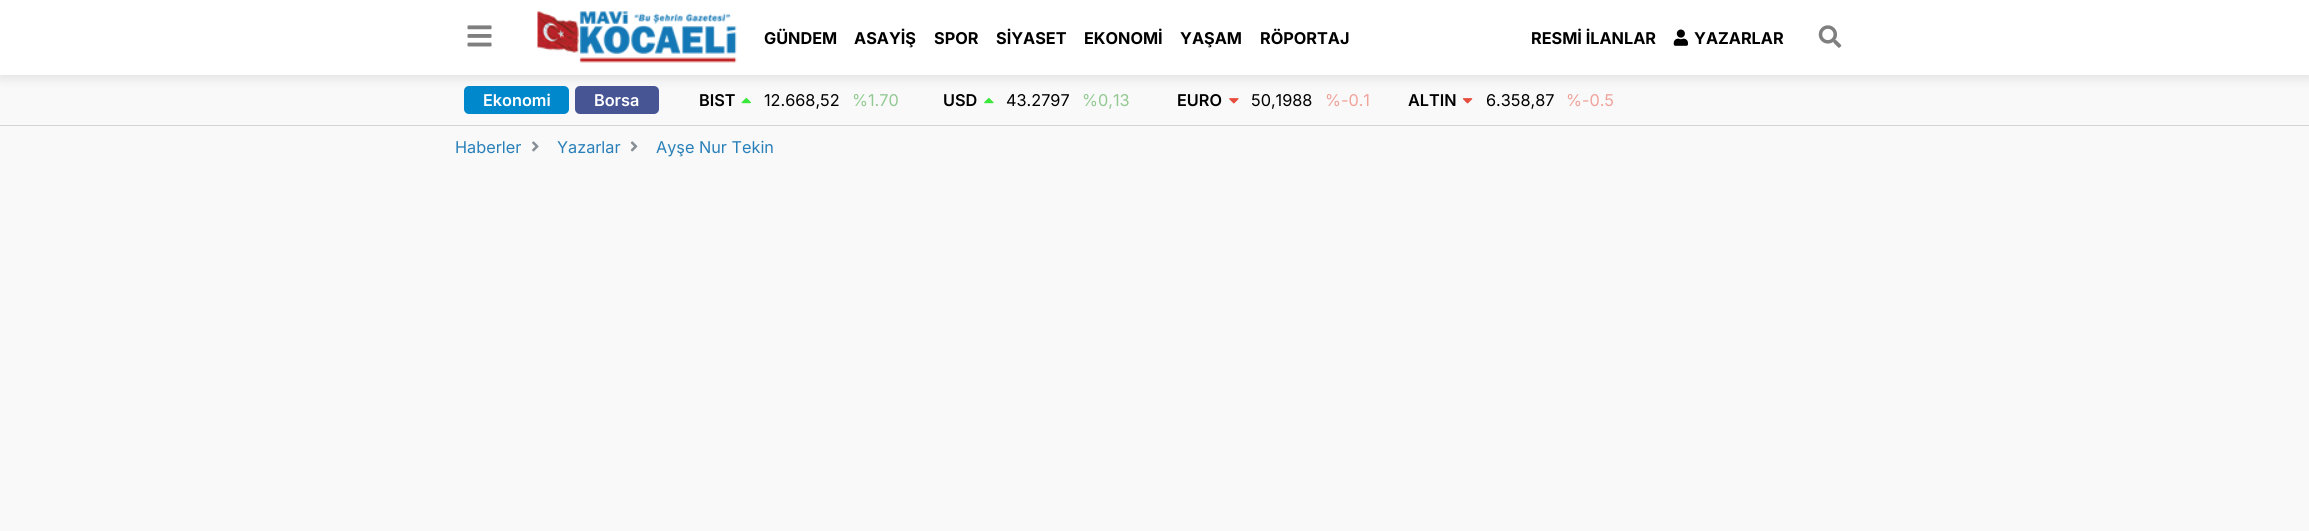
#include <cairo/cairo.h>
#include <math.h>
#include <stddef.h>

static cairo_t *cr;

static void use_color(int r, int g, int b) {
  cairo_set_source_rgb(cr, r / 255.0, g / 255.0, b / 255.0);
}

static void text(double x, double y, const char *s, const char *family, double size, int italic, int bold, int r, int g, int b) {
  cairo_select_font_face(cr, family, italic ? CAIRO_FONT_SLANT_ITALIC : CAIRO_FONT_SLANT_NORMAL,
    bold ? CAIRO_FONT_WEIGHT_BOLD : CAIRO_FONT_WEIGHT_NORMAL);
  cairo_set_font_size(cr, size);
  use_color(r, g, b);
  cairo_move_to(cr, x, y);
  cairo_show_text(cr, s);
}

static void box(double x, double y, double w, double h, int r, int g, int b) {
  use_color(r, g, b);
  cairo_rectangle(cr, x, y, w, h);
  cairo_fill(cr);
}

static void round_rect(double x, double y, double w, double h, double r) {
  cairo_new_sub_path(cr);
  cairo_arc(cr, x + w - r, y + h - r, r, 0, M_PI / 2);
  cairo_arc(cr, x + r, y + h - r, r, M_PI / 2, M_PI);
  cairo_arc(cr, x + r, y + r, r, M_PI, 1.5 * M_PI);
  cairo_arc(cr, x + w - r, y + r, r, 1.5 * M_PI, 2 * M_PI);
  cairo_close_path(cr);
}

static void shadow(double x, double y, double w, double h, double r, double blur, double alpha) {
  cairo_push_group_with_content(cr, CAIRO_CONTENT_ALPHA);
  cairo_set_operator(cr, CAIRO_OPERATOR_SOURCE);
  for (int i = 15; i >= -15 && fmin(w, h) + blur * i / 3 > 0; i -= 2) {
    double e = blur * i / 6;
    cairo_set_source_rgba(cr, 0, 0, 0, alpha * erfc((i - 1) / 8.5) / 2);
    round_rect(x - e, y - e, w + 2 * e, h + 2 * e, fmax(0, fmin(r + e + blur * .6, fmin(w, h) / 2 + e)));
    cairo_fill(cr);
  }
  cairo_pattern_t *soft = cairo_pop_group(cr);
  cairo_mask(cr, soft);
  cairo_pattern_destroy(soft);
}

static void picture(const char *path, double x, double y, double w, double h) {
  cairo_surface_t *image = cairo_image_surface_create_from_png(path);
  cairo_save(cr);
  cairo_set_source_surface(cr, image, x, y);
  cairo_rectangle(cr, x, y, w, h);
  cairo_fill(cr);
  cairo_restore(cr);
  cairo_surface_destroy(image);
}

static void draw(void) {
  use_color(249, 249, 249);
  cairo_paint(cr);
  use_color(0, 136, 204);
  round_rect(464, 86, 105, 28, 5);
  cairo_fill(cr);
  use_color(71, 85, 149);
  round_rect(575, 86, 84, 28, 5);
  cairo_fill(cr);
  use_color(0, 0, 0);
  shadow(0, 3, 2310, 75, 0, 6, 0.1);
  box(0, 0, 2309, 75, 255, 255, 255);
  picture("img_01.png", 467, 25, 25, 22);
  picture("img_02.png", 537, 11, 200, 52);
  picture("img_03.png", 1673, 29, 15, 17);
  picture("img_04.png", 1818, 25, 24, 23);
  box(0, 125, 2309, 1, 211, 211, 211);
  picture("img_05.png", 741, 97, 10, 7);
  picture("img_06.png", 984, 97, 10, 7);
  picture("img_07.png", 1229, 98, 10, 6);
  picture("img_08.png", 1462, 98, 11, 6);
  picture("img_09.png", 532, 141, 7, 11);
  picture("img_10.png", 630, 141, 8, 11);
  text(764, 44, "GÜNDEM", "Inter", 16.25, 0, 1, 0, 0, 0);
  text(854, 44, "ASAYİŞ", "Inter", 16.25, 0, 1, 0, 0, 0);
  text(934, 44, "SPOR", "Inter", 16.25, 0, 1, 0, 0, 0);
  text(996, 44, "SİYASET", "Inter", 16.25, 0, 1, 0, 0, 0);
  text(1084, 44, "EKONOMİ", "Inter", 16.25, 0, 1, 0, 0, 0);
  text(1180, 44, "YAŞAM", "Inter", 16.25, 0, 1, 0, 0, 0);
  text(1260, 44, "RÖPORTAJ", "Inter", 16.25, 0, 1, 0, 0, 0);
  text(1531, 44, "RESMİ İLANLAR", "Inter", 16.25, 0, 1, 0, 0, 0);
  text(1694, 44, "YAZARLAR", "Inter", 16.25, 0, 1, 0, 0, 0);
  text(483, 106, "Ekonomi", "Inter SemiBold", 16.25, 0, 0, 255, 255, 255);
  text(594, 106, "Borsa", "Inter SemiBold", 16.25, 0, 0, 255, 255, 255);
  text(699, 106, "BIST", "Inter SemiBold", 16.25, 0, 0, 0, 0, 0);
  text(764, 106, "12.668,52", "Inter", 16.25, 0, 0, 0, 0, 0);
  text(852, 106, "%1.70", "Inter", 16.25, 0, 0, 146, 201, 146);
  text(943, 106, "USD", "Inter SemiBold", 16.25, 0, 0, 0, 0, 0);
  text(1006, 106, "43.2797", "Inter", 16.25, 0, 0, 0, 0, 0);
  text(1082, 106, "%0,13", "Inter", 16.25, 0, 0, 146, 201, 146);
  text(1177, 106, "EURO", "Inter SemiBold", 16.25, 0, 0, 0, 0, 0);
  text(1251, 106, "50,1988", "Inter", 16.25, 0, 0, 0, 0, 0);
  text(1325, 106, "%-0.1", "Inter", 16.25, 0, 0, 240, 163, 155);
  text(1408, 106, "ALTIN", "Inter SemiBold", 16.25, 0, 0, 0, 0, 0);
  text(1486, 106, "6.358,87", "Inter", 16.25, 0, 0, 0, 0, 0);
  text(1566, 106, "%-0.5", "Inter", 16.25, 0, 0, 240, 163, 155);
  text(455, 153, "Haberler", "Inter", 16.25, 0, 0, 41, 128, 185);
  text(557, 153, "Yazarlar", "Inter", 16.25, 0, 0, 41, 128, 185);
  text(656, 153, "Ayşe Nur Tekin", "Inter", 16.25, 0, 0, 41, 128, 185);
}

int main(void) {
  cairo_surface_t *surface = cairo_image_surface_create(CAIRO_FORMAT_RGB24, 2309, 531);
  cr = cairo_create(surface);
  cairo_font_options_t *options = cairo_font_options_create();
  cairo_font_options_set_hint_metrics(options, CAIRO_HINT_METRICS_OFF);
  cairo_font_options_set_hint_style(options, CAIRO_HINT_STYLE_NONE);
  cairo_set_font_options(cr, options);
  cairo_set_miter_limit(cr, 4);
  draw();
  cairo_surface_write_to_png(surface, "out.png");
  cairo_font_options_destroy(options);
  cairo_destroy(cr);
  cairo_surface_destroy(surface);
  return 0;
}
